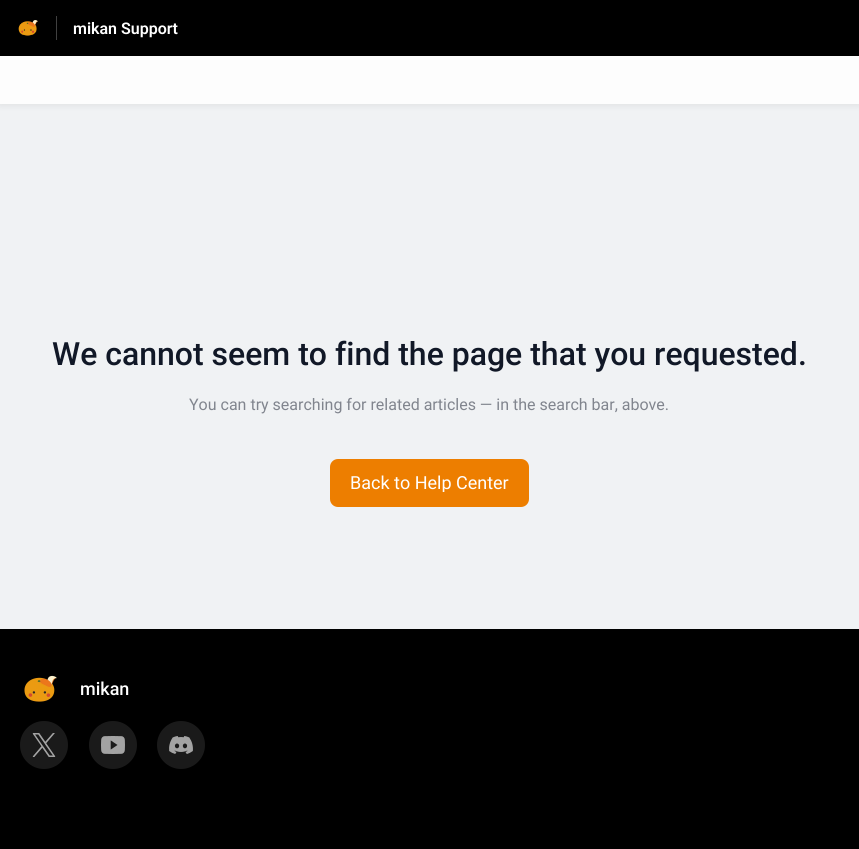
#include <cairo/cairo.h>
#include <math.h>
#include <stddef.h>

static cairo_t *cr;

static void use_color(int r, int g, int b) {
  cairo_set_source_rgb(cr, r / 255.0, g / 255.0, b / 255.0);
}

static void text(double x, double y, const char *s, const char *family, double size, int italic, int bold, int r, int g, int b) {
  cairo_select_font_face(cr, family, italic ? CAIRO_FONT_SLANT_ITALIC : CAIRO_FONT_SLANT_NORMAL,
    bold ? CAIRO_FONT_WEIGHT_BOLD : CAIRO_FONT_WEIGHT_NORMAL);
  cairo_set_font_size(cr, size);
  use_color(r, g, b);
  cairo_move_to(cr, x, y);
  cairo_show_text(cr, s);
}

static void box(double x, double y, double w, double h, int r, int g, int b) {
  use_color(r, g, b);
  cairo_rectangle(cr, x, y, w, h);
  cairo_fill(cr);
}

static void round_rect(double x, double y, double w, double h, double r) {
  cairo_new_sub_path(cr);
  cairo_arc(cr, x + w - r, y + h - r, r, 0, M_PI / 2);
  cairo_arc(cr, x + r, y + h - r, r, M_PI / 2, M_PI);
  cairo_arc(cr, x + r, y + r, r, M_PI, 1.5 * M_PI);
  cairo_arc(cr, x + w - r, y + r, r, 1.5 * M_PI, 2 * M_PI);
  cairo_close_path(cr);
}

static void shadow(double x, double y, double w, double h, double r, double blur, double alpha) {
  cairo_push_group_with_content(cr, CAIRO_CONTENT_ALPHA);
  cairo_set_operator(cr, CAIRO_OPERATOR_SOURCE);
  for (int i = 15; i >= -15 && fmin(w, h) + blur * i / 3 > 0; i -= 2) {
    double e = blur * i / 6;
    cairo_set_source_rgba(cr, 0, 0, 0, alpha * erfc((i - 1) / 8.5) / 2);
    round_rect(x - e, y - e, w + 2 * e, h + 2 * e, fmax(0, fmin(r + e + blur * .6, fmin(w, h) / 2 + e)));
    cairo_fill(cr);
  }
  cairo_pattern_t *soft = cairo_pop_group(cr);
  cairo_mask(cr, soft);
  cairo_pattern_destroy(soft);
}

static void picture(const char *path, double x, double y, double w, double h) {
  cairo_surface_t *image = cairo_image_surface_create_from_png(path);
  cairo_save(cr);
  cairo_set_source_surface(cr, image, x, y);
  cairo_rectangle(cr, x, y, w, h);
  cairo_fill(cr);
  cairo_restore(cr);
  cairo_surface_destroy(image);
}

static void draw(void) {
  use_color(240, 242, 244);
  cairo_paint(cr);
  use_color(0, 0, 0);
  shadow(0, 57, 859, 48, 0, 4, 0.08);
  box(0, 0, 859, 56, 0, 0, 0);
  box(56, 16, 1, 24, 64, 64, 64);
  picture("img_01.png", 18, 20, 20, 16);
  box(0, 56, 859, 48, 253, 253, 253);
  use_color(237, 126, 0);
  round_rect(330, 459, 199, 48, 8);
  cairo_fill(cr);
  box(0, 629, 859, 220, 0, 0, 0);
  picture("img_02.png", 24, 675, 33, 27);
  use_color(26, 26, 26);
  cairo_arc(cr, 44, 745, 24, 0, 2 * M_PI);
  cairo_fill(cr);
  picture("img_03.png", 32, 733, 24, 24);
  cairo_arc(cr, 113, 745, 24, 0, 2 * M_PI);
  cairo_fill(cr);
  picture("img_04.png", 101, 736, 24, 18);
  cairo_arc(cr, 181, 745, 24, 0, 2 * M_PI);
  cairo_fill(cr);
  picture("img_05.png", 169, 736, 24, 18);
  text(73, 34, "mikan Support", "Roboto SemiBold", 16, 0, 0, 255, 255, 255);
  text(52, 365, "We cannot seem to find the page that you requested.", "Roboto Medium", 32, 0, 0, 17, 24, 39);
  text(189, 410, "You can try searching for related articles — in the search bar, above.", "Roboto", 16, 0, 0, 129, 133, 142);
  cairo_save(cr);
  cairo_rectangle(cr, 350, 474, 159, 18);
  cairo_clip(cr);
  text(350, 489, "Back to Help Center", "Roboto", 18, 0, 0, 255, 255, 255);
  cairo_restore(cr);
  text(80, 695, "mikan", "Roboto Medium", 18, 0, 0, 255, 255, 255);
}

int main(void) {
  cairo_surface_t *surface = cairo_image_surface_create(CAIRO_FORMAT_RGB24, 859, 849);
  cr = cairo_create(surface);
  cairo_font_options_t *options = cairo_font_options_create();
  cairo_font_options_set_hint_metrics(options, CAIRO_HINT_METRICS_OFF);
  cairo_font_options_set_hint_style(options, CAIRO_HINT_STYLE_NONE);
  cairo_set_font_options(cr, options);
  cairo_set_miter_limit(cr, 4);
  draw();
  cairo_surface_write_to_png(surface, "out.png");
  cairo_font_options_destroy(options);
  cairo_destroy(cr);
  cairo_surface_destroy(surface);
  return 0;
}
